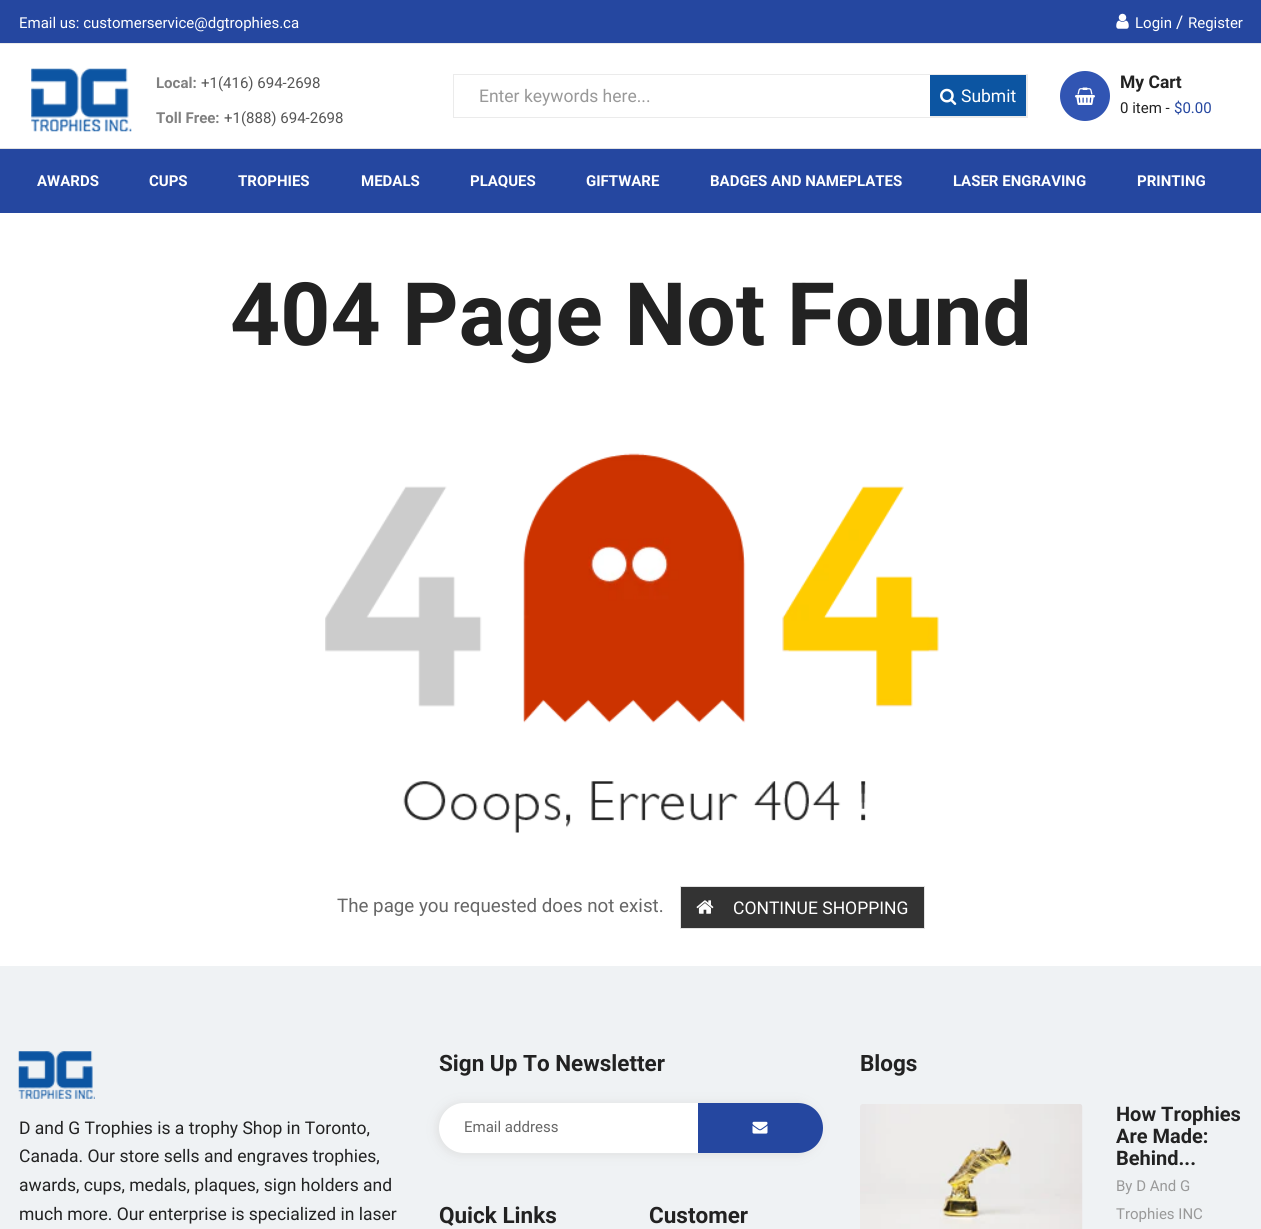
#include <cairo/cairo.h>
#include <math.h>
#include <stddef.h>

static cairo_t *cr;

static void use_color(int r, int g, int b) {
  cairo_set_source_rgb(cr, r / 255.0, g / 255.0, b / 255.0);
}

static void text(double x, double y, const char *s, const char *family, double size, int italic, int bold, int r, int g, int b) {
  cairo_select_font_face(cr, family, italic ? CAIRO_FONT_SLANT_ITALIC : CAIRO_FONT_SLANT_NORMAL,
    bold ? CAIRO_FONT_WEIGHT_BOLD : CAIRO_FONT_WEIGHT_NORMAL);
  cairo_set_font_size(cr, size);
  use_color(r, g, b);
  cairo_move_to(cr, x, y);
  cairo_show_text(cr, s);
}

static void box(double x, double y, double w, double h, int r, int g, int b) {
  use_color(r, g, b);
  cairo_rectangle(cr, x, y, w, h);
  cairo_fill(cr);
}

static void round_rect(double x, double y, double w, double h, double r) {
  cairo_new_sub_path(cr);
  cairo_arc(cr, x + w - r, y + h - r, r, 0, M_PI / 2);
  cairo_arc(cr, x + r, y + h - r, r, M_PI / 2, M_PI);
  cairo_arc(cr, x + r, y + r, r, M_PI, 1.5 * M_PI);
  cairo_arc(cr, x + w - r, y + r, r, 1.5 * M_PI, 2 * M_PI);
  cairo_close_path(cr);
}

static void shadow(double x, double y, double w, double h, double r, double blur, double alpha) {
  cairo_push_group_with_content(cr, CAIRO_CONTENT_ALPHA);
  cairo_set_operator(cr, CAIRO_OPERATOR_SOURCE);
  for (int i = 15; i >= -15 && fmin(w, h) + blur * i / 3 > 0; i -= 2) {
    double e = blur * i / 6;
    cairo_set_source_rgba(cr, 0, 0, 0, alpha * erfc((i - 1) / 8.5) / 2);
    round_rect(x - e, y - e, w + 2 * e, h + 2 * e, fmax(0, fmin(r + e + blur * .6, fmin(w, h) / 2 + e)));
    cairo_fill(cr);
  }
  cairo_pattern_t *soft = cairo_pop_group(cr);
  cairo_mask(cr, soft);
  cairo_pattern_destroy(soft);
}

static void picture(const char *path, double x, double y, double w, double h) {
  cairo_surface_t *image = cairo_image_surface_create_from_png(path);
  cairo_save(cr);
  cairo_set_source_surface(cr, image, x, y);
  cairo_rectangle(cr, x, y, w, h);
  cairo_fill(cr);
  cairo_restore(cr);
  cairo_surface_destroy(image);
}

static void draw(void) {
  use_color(255, 255, 255);
  cairo_paint(cr);
  box(0, 0, 1261, 43, 37, 71, 160);
  box(0, 43, 1261, 1, 235, 235, 235);
  picture("img_01.png", 1116, 13, 13, 16);
  picture("img_02.png", 31, 68, 101, 64);
  cairo_rectangle(cr, 453.5, 74.5, 574, 43);
  cairo_set_line_width(cr, 1);
  cairo_stroke(cr);
  box(930, 75, 96, 41, 12, 85, 162);
  box(1026, 74, 1, 44, 235, 235, 235);
  box(930, 116, 98, 1, 235, 235, 235);
  picture("img_03.png", 940, 88, 17, 17);
  use_color(49, 85, 179);
  cairo_arc(cr, 1085, 96, 25, 0, 2 * M_PI);
  cairo_fill(cr);
  picture("img_04.png", 1075, 87, 20, 18);
  box(0, 149, 1261, 64, 37, 71, 160);
  box(0, 148, 1261, 1, 226, 226, 226);
  picture("img_05.png", 325, 453, 614, 380);
  use_color(51, 51, 51);
  cairo_rectangle(cr, 680.5, 886.5, 244, 42);
  cairo_fill_preserve(cr);
  use_color(226, 226, 226);
  cairo_stroke(cr);
  picture("img_06.png", 696, 900, 18, 14);
  box(0, 966, 1261, 263, 239, 242, 244);
  picture("img_07.png", 18, 1051, 77, 48);
  use_color(221, 221, 221);
  shadow(438, 1104, 380, 50, 25, 5.5, 1);
  use_color(255, 255, 255);
  round_rect(439, 1103, 380, 50, 25);
  cairo_fill(cr);
  use_color(37, 71, 160);
  cairo_new_path(cr);
  cairo_move_to(cr, 698, 1103);
  cairo_line_to(cr, 798, 1103);
  cairo_curve_to(cr, 812, 1103, 823, 1114, 823, 1128);
  cairo_curve_to(cr, 823, 1142, 812, 1153, 798, 1153);
  cairo_line_to(cr, 698, 1153);
  cairo_close_path(cr);
  cairo_fill(cr);
  picture("img_08.png", 752, 1121, 16, 13);
  picture("img_09.png", 860, 1104, 223, 125);
  text(19, 28, "Email us: customerservice@dgtrophies.ca", "Roboto", 15, 0, 0, 255, 255, 255);
  text(1135, 28, "Login", "Roboto", 15, 0, 0, 255, 255, 255);
  text(1176, 28, "/", "Roboto", 17.5, 0, 0, 255, 255, 255);
  text(1188, 28, "Register", "Roboto", 15, 0, 0, 255, 255, 255);
  text(156, 88, "Local:", "Roboto", 15, 0, 1, 128, 128, 128);
  text(201, 88, "+1(416) 694-2698", "Roboto", 15, 0, 0, 85, 85, 85);
  text(156, 123, "Toll Free:", "Roboto", 15, 0, 1, 128, 128, 128);
  text(224, 123, "+1(888) 694-2698", "Roboto", 15, 0, 0, 85, 85, 85);
  text(479, 102, "Enter keywords here...", "Roboto", 17.5, 0, 0, 153, 153, 153);
  text(961, 102, "Submit", "Roboto", 17.5, 0, 0, 255, 255, 255);
  text(1120, 88, "My Cart", "Roboto", 17.5, 0, 1, 34, 34, 34);
  text(1120, 113, "0 item -", "Roboto", 15, 0, 0, 34, 34, 34);
  text(1174, 113, "$0.00", "Roboto", 15, 0, 0, 37, 71, 160);
  text(37, 186, "AWARDS", "Roboto", 15, 0, 1, 255, 255, 255);
  text(149, 186, "CUPS", "Roboto", 15, 0, 1, 255, 255, 255);
  text(238, 186, "TROPHIES", "Roboto", 15, 0, 1, 255, 255, 255);
  text(361, 186, "MEDALS", "Roboto", 15, 0, 1, 255, 255, 255);
  text(470, 186, "PLAQUES", "Roboto", 15, 0, 1, 255, 255, 255);
  text(586, 186, "GIFTWARE", "Roboto", 15, 0, 1, 255, 255, 255);
  text(710, 186, "BADGES AND NAMEPLATES", "Roboto", 15, 0, 1, 255, 255, 255);
  text(953, 186, "LASER ENGRAVING", "Roboto", 15, 0, 1, 255, 255, 255);
  text(1137, 186, "PRINTING", "Roboto", 15, 0, 1, 255, 255, 255);
  text(230, 345, "404 Page Not Found", "Roboto", 87.5, 0, 1, 34, 34, 34);
  text(337, 912, "The page you requested does not exist.", "Roboto", 18.75, 0, 0, 102, 102, 102);
  text(733, 914, "CONTINUE SHOPPING", "Roboto", 17.5, 0, 0, 255, 255, 255);
  text(19, 1134, "D and G Trophies is a trophy Shop in Toronto,", "Roboto", 17.5, 0, 0, 34, 34, 34);
  text(19, 1162, "Canada. Our store sells and engraves trophies,", "Roboto", 17.5, 0, 0, 34, 34, 34);
  text(19, 1191, "awards, cups, medals, plaques, sign holders and", "Roboto", 17.5, 0, 0, 34, 34, 34);
  text(19, 1220, "much more. Our enterprise is specialized in laser", "Roboto", 17.5, 0, 0, 34, 34, 34);
  text(439, 1071, "Sign Up To Newsletter", "Roboto", 22.5, 0, 1, 34, 34, 34);
  text(464, 1132, "Email address", "Roboto", 15, 0, 0, 102, 102, 102);
  text(439, 1223, "Quick Links", "Roboto", 22.5, 0, 1, 34, 34, 34);
  text(649, 1223, "Customer", "Roboto", 22.5, 0, 1, 34, 34, 34);
  text(860, 1071, "Blogs", "Roboto", 22.5, 0, 1, 34, 34, 34);
  text(1116, 1121, "How Trophies", "Roboto", 20, 0, 1, 34, 34, 34);
  text(1116, 1143, "Are Made:", "Roboto", 20, 0, 1, 34, 34, 34);
  text(1116, 1165, "Behind...", "Roboto", 20, 0, 1, 34, 34, 34);
  text(1116, 1191, "By D And G", "Roboto", 15, 0, 0, 153, 153, 153);
  text(1116, 1219, "Trophies INC", "Roboto", 15, 0, 0, 153, 153, 153);
}

int main(void) {
  cairo_surface_t *surface = cairo_image_surface_create(CAIRO_FORMAT_RGB24, 1261, 1229);
  cr = cairo_create(surface);
  cairo_font_options_t *options = cairo_font_options_create();
  cairo_font_options_set_hint_metrics(options, CAIRO_HINT_METRICS_OFF);
  cairo_font_options_set_hint_style(options, CAIRO_HINT_STYLE_NONE);
  cairo_set_font_options(cr, options);
  cairo_set_miter_limit(cr, 4);
  draw();
  cairo_surface_write_to_png(surface, "out.png");
  cairo_font_options_destroy(options);
  cairo_destroy(cr);
  cairo_surface_destroy(surface);
  return 0;
}
